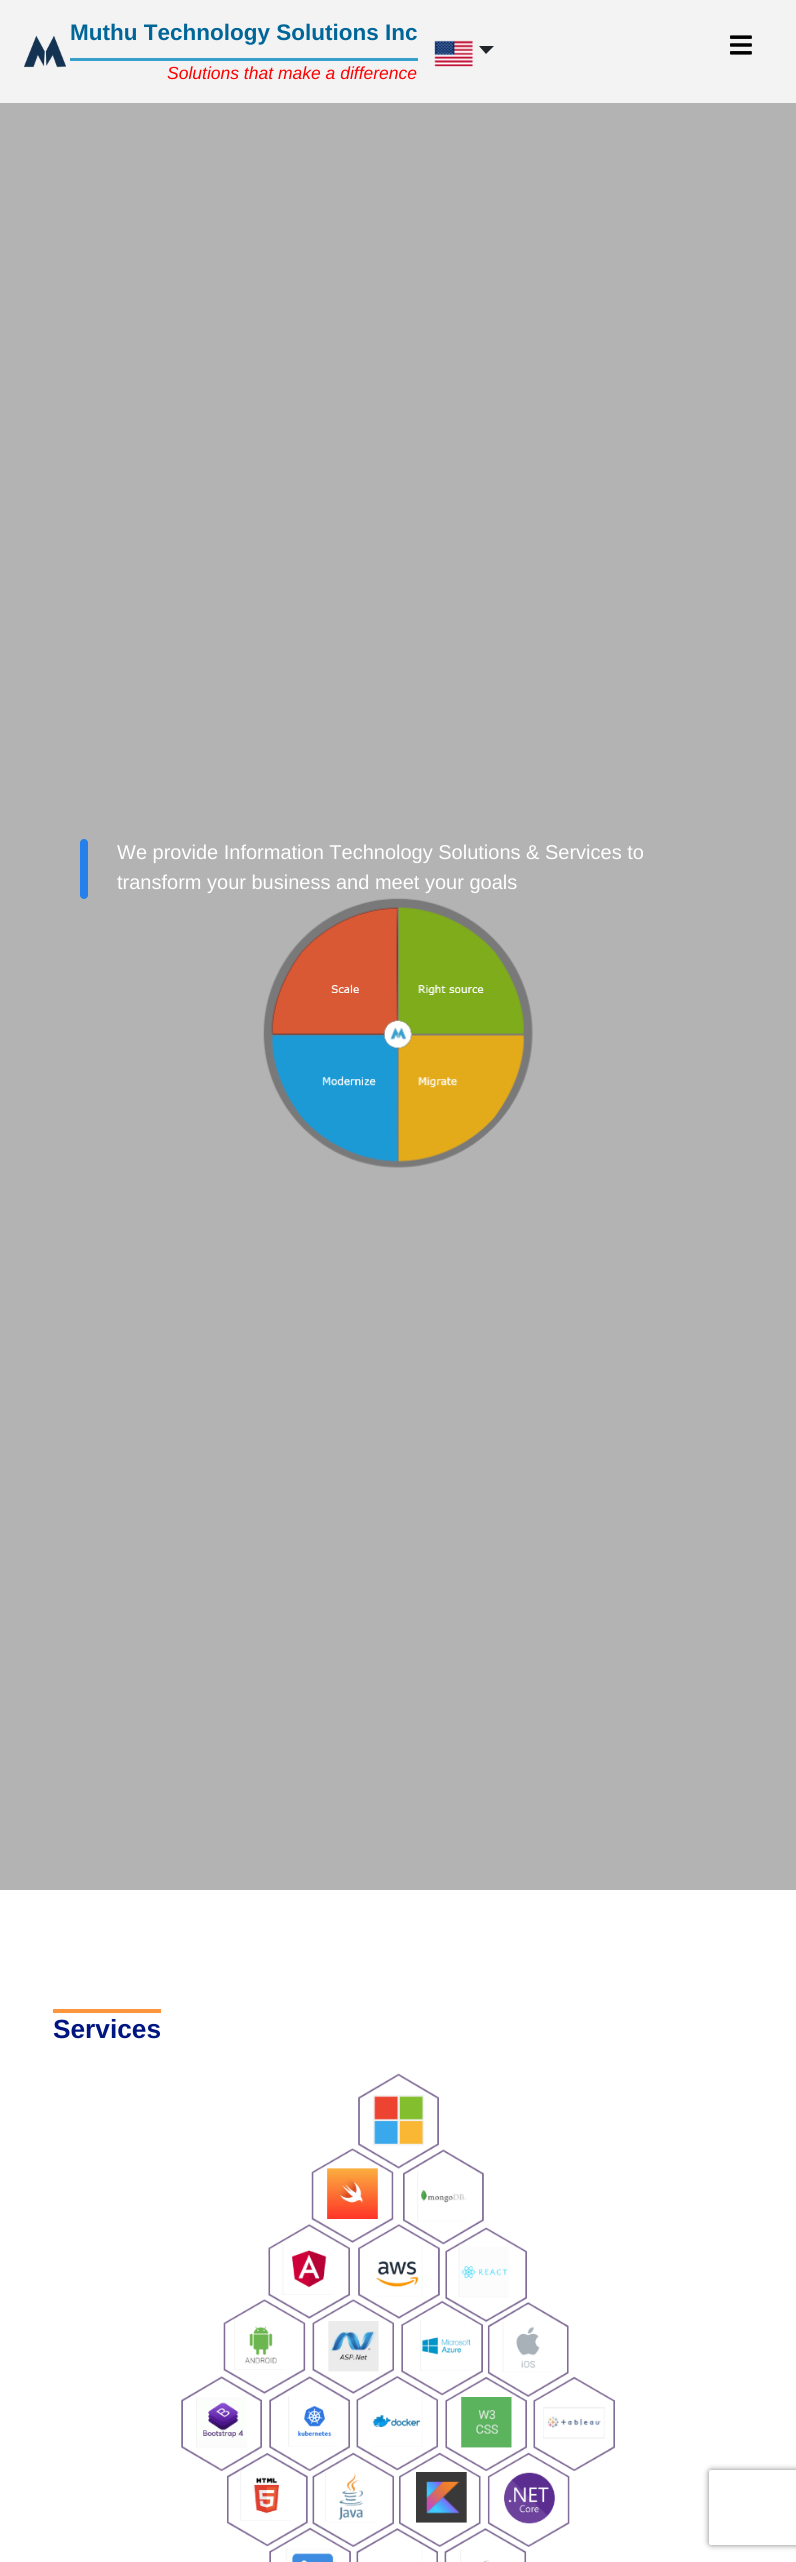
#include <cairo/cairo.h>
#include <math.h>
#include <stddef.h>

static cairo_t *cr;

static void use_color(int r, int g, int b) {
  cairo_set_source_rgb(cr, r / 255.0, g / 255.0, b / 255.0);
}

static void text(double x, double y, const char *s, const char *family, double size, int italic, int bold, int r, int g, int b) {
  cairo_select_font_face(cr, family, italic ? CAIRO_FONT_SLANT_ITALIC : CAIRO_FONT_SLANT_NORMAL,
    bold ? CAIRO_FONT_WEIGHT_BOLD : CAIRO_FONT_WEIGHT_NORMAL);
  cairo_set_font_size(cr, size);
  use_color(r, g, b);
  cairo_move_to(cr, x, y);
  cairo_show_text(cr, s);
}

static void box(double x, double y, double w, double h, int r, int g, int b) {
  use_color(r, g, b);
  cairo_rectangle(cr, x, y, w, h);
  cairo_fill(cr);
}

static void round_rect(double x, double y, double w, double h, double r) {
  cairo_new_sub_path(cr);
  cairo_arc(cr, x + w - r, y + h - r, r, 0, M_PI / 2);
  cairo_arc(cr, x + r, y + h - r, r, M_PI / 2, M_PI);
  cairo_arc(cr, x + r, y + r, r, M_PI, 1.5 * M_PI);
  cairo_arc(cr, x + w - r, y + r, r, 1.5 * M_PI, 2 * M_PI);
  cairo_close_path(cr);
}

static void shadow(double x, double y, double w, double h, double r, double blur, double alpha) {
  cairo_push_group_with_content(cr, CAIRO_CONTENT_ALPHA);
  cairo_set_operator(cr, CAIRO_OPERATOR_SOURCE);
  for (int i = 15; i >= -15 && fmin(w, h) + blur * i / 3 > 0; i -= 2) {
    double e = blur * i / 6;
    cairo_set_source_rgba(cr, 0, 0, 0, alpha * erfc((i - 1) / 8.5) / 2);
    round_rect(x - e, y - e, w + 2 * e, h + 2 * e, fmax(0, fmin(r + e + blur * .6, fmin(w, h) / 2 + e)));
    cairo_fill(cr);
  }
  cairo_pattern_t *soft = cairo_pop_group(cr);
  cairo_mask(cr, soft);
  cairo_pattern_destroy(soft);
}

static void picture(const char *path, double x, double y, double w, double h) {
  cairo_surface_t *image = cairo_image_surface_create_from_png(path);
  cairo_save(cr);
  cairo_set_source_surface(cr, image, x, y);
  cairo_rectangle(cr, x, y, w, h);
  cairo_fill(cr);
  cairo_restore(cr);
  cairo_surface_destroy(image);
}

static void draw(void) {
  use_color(255, 255, 255);
  cairo_paint(cr);
  box(0, 0, 796, 103, 243, 243, 243);
  picture("img_01.png", 24, 35, 43, 33);
  box(70, 58, 348, 3, 55, 159, 203);
  picture("img_02.png", 434, 40, 39, 27);
  use_color(33, 37, 41);
  cairo_new_path(cr);
  cairo_move_to(cr, 479, 46);
  cairo_line_to(cr, 494, 46);
  cairo_line_to(cr, 486, 54);
  cairo_close_path(cr);
  cairo_fill(cr);
  picture("img_03.png", 730, 35, 22, 20);
  box(0, 103, 796, 1787, 179, 179, 179);
  use_color(38, 128, 235);
  round_rect(80, 839, 8, 60, 4);
  cairo_fill(cr);
  picture("img_04.png", 263, 898, 270, 270);
  box(53, 2009, 108, 4, 252, 149, 59);
  picture("img_05.png", 181, 2073, 434, 489);
  cairo_save(cr);
  cairo_set_fill_rule(cr, CAIRO_FILL_RULE_EVEN_ODD);
  cairo_new_path(cr);
  cairo_move_to(cr, 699, 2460);
  cairo_line_to(cr, 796, 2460);
  cairo_line_to(cr, 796, 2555);
  cairo_line_to(cr, 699, 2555);
  cairo_close_path(cr);
  cairo_move_to(cr, 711.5, 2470);
  cairo_line_to(cr, 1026.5, 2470);
  cairo_curve_to(cr, 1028, 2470, 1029, 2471, 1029, 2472.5);
  cairo_line_to(cr, 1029, 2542.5);
  cairo_curve_to(cr, 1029, 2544, 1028, 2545, 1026.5, 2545);
  cairo_line_to(cr, 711.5, 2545);
  cairo_curve_to(cr, 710, 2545, 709, 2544, 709, 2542.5);
  cairo_line_to(cr, 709, 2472.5);
  cairo_curve_to(cr, 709, 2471, 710, 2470, 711.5, 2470);
  cairo_close_path(cr);
  cairo_clip(cr);
  use_color(128, 128, 128);
  shadow(709, 2470, 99, 75, 2.5, 3, 1);
  cairo_restore(cr);
  text(70, 40, "Muthu Technology Solutions Inc", "Liberation Sans", 22.5, 0, 1, 0, 102, 153);
  text(167, 79, "Solutions that make a difference", "Liberation Sans", 17.5, 1, 0, 255, 0, 0);
  text(117, 859, "We provide Information Technology Solutions & Services to", "Liberation Sans", 20, 0, 0, 255, 255, 255);
  text(117, 889, "transform your business and meet your goals", "Liberation Sans", 20, 0, 0, 255, 255, 255);
  text(53, 2038, "Services", "Liberation Sans", 26.25, 0, 1, 0, 21, 128);
}

int main(void) {
  cairo_surface_t *surface = cairo_image_surface_create(CAIRO_FORMAT_RGB24, 796, 2562);
  cr = cairo_create(surface);
  cairo_font_options_t *options = cairo_font_options_create();
  cairo_font_options_set_hint_metrics(options, CAIRO_HINT_METRICS_OFF);
  cairo_font_options_set_hint_style(options, CAIRO_HINT_STYLE_NONE);
  cairo_set_font_options(cr, options);
  cairo_set_miter_limit(cr, 4);
  draw();
  cairo_surface_write_to_png(surface, "out.png");
  cairo_font_options_destroy(options);
  cairo_destroy(cr);
  cairo_surface_destroy(surface);
  return 0;
}
